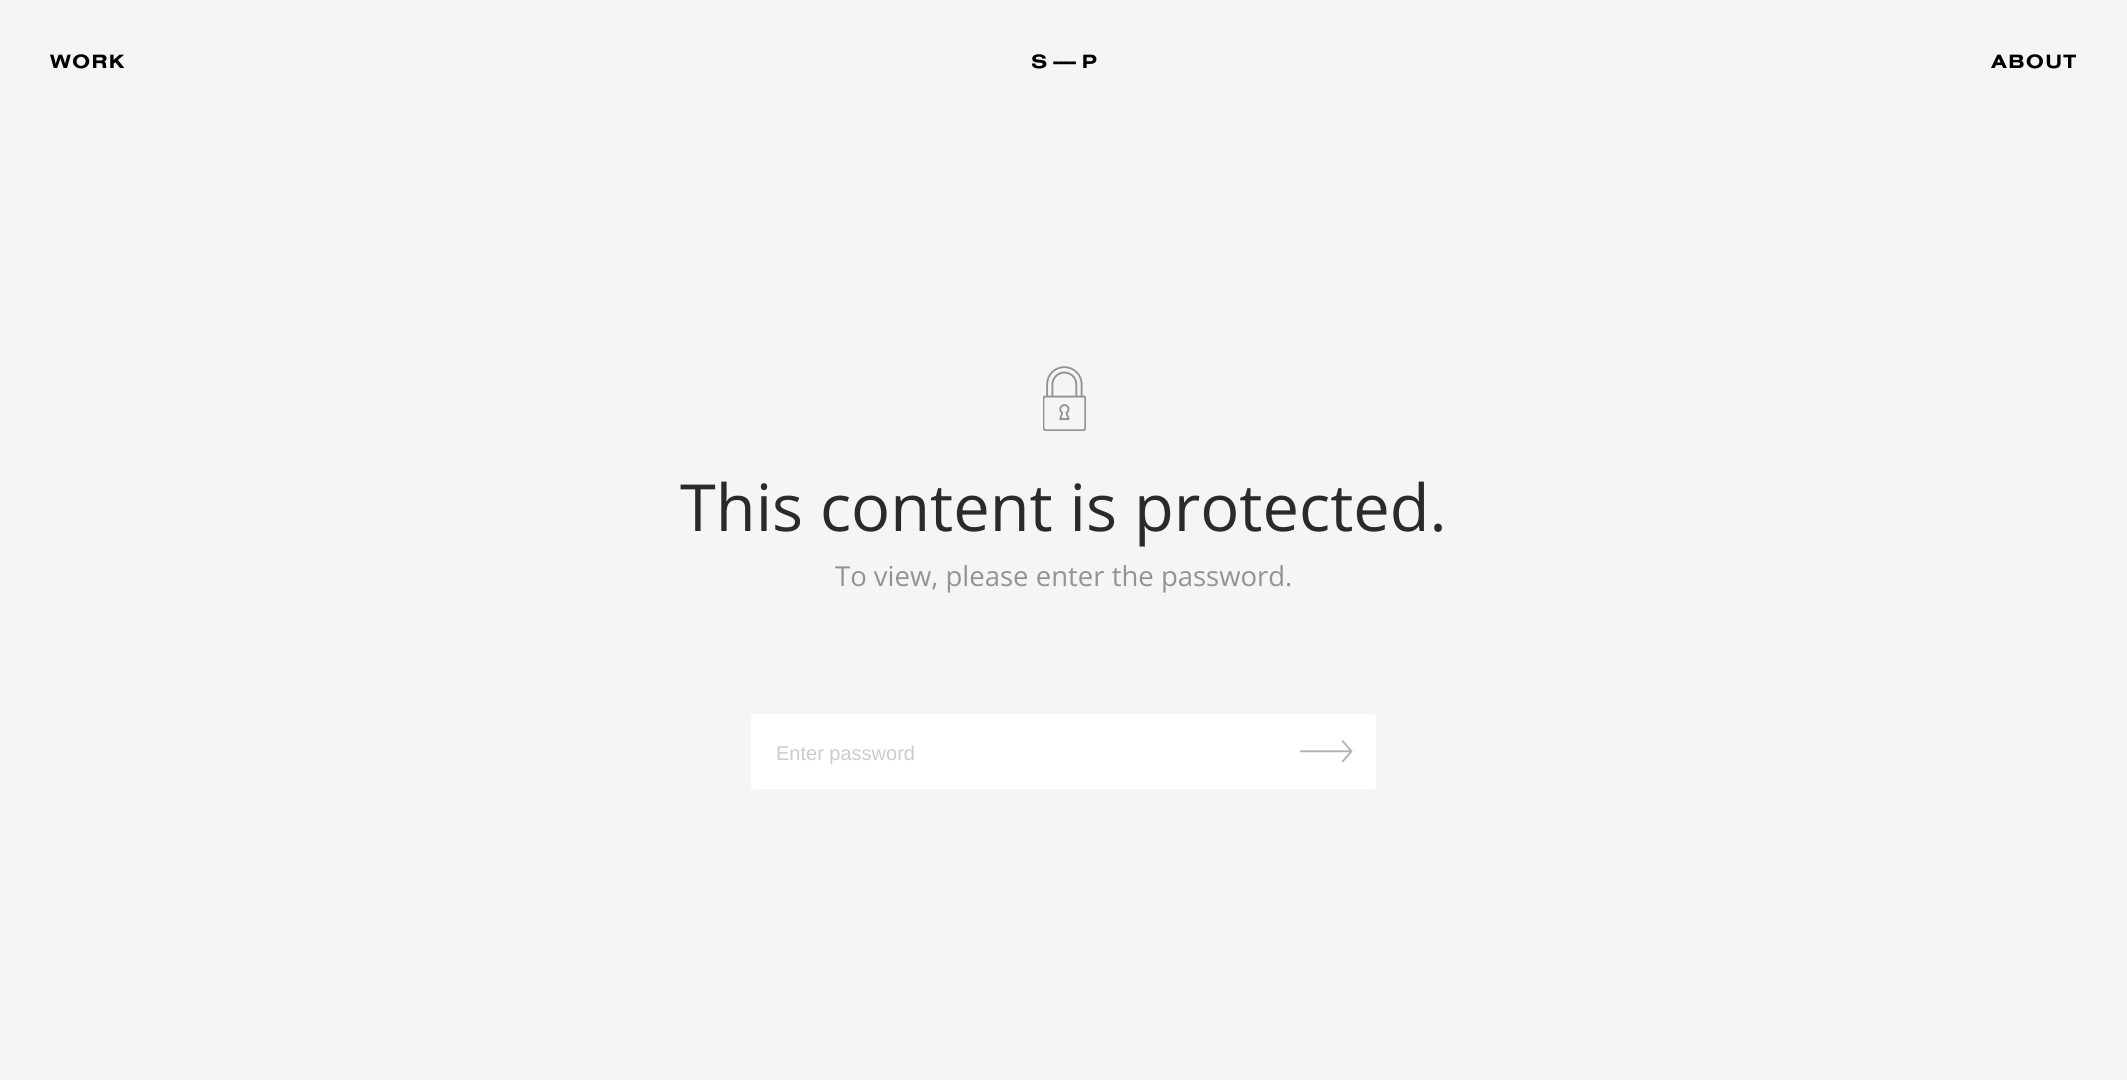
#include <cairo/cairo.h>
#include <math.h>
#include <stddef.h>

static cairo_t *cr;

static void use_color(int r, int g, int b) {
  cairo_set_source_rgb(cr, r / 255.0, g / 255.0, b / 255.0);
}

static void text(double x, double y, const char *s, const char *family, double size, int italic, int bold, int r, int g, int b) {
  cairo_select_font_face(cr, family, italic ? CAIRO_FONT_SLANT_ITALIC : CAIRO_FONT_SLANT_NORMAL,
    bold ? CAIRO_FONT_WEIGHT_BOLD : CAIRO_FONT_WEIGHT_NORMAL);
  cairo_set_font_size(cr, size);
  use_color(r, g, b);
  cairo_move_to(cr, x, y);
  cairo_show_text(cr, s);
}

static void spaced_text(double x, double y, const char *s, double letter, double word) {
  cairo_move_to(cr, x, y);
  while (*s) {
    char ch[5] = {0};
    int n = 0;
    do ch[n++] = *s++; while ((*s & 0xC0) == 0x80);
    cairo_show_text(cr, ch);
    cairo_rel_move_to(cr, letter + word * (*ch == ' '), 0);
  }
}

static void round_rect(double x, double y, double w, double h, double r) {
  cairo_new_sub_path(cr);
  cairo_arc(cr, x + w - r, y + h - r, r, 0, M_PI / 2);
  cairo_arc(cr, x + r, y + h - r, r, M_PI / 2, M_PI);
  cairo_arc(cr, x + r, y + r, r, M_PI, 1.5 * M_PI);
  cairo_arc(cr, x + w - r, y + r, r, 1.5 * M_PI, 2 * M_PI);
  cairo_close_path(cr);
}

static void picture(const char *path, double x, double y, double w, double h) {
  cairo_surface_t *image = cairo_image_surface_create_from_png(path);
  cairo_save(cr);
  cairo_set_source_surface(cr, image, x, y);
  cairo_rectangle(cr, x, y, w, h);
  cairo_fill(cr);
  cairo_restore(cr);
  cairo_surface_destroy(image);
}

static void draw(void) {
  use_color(245, 245, 245);
  cairo_paint(cr);
  picture("img_01.png", 1043, 366, 43, 65);
  use_color(255, 255, 255);
  round_rect(751, 714, 625, 75, 2.5);
  cairo_fill(cr);
  picture("img_02.png", 1300, 740, 53, 23);
  cairo_select_font_face(cr, "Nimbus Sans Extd", CAIRO_FONT_SLANT_NORMAL, CAIRO_FONT_WEIGHT_BOLD);
  cairo_set_font_size(cr, 20);
  use_color(0, 0, 0);
  spaced_text(50, 68, "WORK", 1.25, 0);
  spaced_text(1991, 68, "ABOUT", 1.25, 0);
  text(1031, 68, "S ---- P", "Nimbus Sans Extd", 20, 0, 1, 0, 0, 0);
  text(680, 531, "This content is protected.", "Open Sans", 65, 0, 0, 41, 42, 44);
  text(835, 586, "To view, please enter the password.", "Open Sans", 27.5, 0, 0, 147, 147, 147);
  text(776, 760, "Enter password", "Liberation Sans", 20, 0, 0, 204, 204, 204);
}

int main(void) {
  cairo_surface_t *surface = cairo_image_surface_create(CAIRO_FORMAT_RGB24, 2127, 1080);
  cr = cairo_create(surface);
  cairo_font_options_t *options = cairo_font_options_create();
  cairo_font_options_set_hint_metrics(options, CAIRO_HINT_METRICS_OFF);
  cairo_font_options_set_hint_style(options, CAIRO_HINT_STYLE_NONE);
  cairo_set_font_options(cr, options);
  cairo_set_miter_limit(cr, 4);
  draw();
  cairo_surface_write_to_png(surface, "out.png");
  cairo_font_options_destroy(options);
  cairo_destroy(cr);
  cairo_surface_destroy(surface);
  return 0;
}
